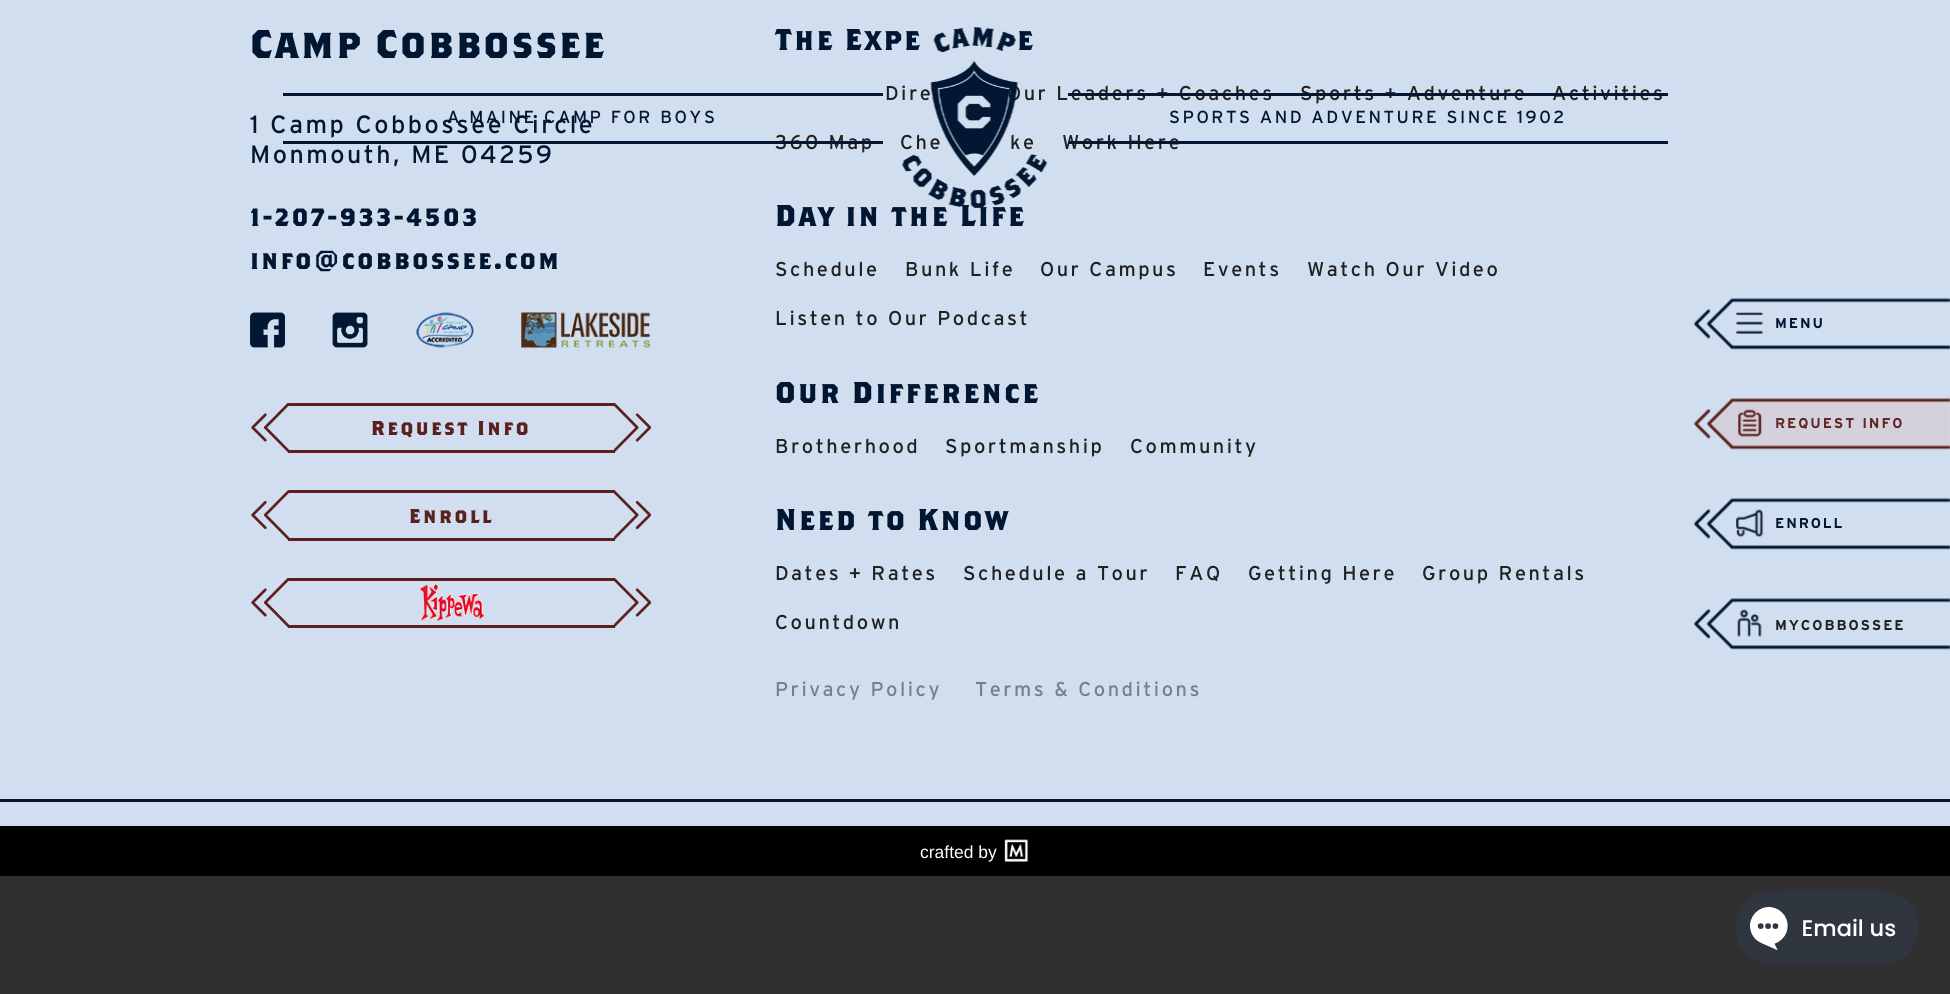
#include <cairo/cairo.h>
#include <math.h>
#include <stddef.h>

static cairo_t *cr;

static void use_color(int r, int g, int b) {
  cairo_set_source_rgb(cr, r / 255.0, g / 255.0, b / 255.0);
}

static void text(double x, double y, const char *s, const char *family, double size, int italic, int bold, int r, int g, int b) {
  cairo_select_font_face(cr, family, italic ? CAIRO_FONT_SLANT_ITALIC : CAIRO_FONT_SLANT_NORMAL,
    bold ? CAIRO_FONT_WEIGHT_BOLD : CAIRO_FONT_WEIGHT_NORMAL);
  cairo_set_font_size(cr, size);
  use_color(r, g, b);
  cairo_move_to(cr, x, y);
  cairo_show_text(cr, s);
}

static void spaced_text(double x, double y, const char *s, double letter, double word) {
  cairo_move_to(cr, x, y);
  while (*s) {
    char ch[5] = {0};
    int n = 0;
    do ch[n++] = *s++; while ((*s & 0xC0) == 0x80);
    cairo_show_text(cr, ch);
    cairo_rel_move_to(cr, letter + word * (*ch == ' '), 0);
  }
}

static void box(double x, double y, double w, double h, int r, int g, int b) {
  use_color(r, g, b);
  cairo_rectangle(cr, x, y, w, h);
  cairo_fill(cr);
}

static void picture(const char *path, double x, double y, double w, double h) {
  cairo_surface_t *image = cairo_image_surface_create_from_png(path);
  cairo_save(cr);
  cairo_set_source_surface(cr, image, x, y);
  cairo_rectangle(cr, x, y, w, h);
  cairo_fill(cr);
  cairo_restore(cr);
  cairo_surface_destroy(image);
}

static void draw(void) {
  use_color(48, 48, 48);
  cairo_paint(cr);
  box(0, 0, 1950, 826, 208, 222, 239);
  picture("img_01.png", 250, 312, 35, 36);
  picture("img_02.png", 332, 312, 36, 36);
  picture("img_03.png", 416, 312, 58, 36);
  picture("img_04.png", 521, 312, 129, 36);
  picture("img_05.png", 614, 403, 37, 49);
  picture("img_06.png", 251, 403, 38, 50);
  box(288, 403, 327, 3, 92, 32, 31);
  box(288, 450, 327, 3, 92, 32, 31);
  picture("img_07.png", 614, 490, 37, 50);
  picture("img_08.png", 251, 490, 38, 50);
  box(288, 490, 327, 3, 92, 32, 31);
  box(288, 538, 327, 3, 92, 32, 31);
  picture("img_05.png", 614, 578, 37, 49);
  picture("img_06.png", 251, 578, 38, 50);
  box(288, 578, 327, 3, 92, 32, 31);
  box(288, 625, 327, 3, 92, 32, 31);
  picture("img_09.png", 419, 583, 66, 39);
  box(0, 799, 1950, 3, 1, 23, 50);
  box(283, 93, 600, 3, 1, 23, 50);
  picture("img_11.png", 1693, 298, 257, 52);
  picture("img_12.png", 1736, 312, 28, 22);
  picture("img_13.png", 1693, 398, 257, 52);
  picture("img_14.png", 1738, 409, 24, 28);
  picture("img_11.png", 1693, 498, 257, 52);
  picture("img_15.png", 1736, 509, 28, 28);
  picture("img_11.png", 1693, 598, 257, 52);
  picture("img_16.png", 1737, 609, 25, 28);
  box(0, 826, 1950, 50, 0, 0, 0);
  picture("img_17.png", 1004, 839, 25, 23);
  picture("img_18.png", 1735, 891, 184, 73);
  cairo_select_font_face(cr, "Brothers", CAIRO_FONT_SLANT_NORMAL, CAIRO_FONT_WEIGHT_BOLD);
  cairo_set_font_size(cr, 40);
  use_color(1, 22, 49);
  spaced_text(250, 58, "Camp Cobbossee", 2.5, 0);
  cairo_select_font_face(cr, "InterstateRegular", CAIRO_FONT_SLANT_NORMAL, CAIRO_FONT_WEIGHT_NORMAL);
  cairo_set_font_size(cr, 25);
  spaced_text(250, 133, "1 Camp Cobbossee Circle", 2.5, 0);
  spaced_text(250, 163, "Monmouth, ME 04259", 2.5, 0);
  cairo_select_font_face(cr, "Brothers", CAIRO_FONT_SLANT_NORMAL, CAIRO_FONT_WEIGHT_BOLD);
  spaced_text(250, 226, "1-207-933-4503", 2.5, 0);
  spaced_text(250, 269, "info@cobbossee.com", 2.5, 0);
  cairo_set_font_size(cr, 20);
  use_color(92, 32, 31);
  spaced_text(371, 435, "Request Info", 2.5, 0);
  spaced_text(409, 523, "Enroll", 2.5, 0);
  cairo_set_font_size(cr, 30);
  use_color(1, 22, 49);
  spaced_text(775, 50, "The Expe", 2.5, 0);
  spaced_text(1017, 50, "e", 2.5, 0);
  cairo_select_font_face(cr, "InterstateRegular", CAIRO_FONT_SLANT_NORMAL, CAIRO_FONT_WEIGHT_NORMAL);
  cairo_set_font_size(cr, 20);
  use_color(32, 32, 32);
  spaced_text(885, 100, "Dire", 2.5, 0);
  spaced_text(1007, 100, "Our Leaders + Coaches", 2.5, 0);
  spaced_text(1300, 100, "Sports + Adventure", 2.5, 0);
  spaced_text(1552, 100, "Activities", 2.5, 0);
  spaced_text(775, 149, "360 Map", 2.5, 0);
  spaced_text(900, 149, "Che", 2.5, 0);
  spaced_text(1010, 149, "ke", 2.5, 0);
  spaced_text(1062, 149, "Work Here", 2.5, 0);
  cairo_select_font_face(cr, "Brothers", CAIRO_FONT_SLANT_NORMAL, CAIRO_FONT_WEIGHT_BOLD);
  cairo_set_font_size(cr, 30);
  use_color(1, 22, 49);
  spaced_text(775, 226, "Day in the Life", 2.5, 0);
  cairo_select_font_face(cr, "InterstateRegular", CAIRO_FONT_SLANT_NORMAL, CAIRO_FONT_WEIGHT_NORMAL);
  cairo_set_font_size(cr, 20);
  use_color(32, 32, 32);
  spaced_text(775, 276, "Schedule", 2.5, 0);
  spaced_text(905, 276, "Bunk Life", 2.5, 0);
  spaced_text(1040, 276, "Our Campus", 2.5, 0);
  spaced_text(1203, 276, "Events", 2.5, 0);
  spaced_text(1307, 276, "Watch Our Video", 2.5, 0);
  spaced_text(775, 325, "Listen to Our Podcast", 2.5, 0);
  cairo_select_font_face(cr, "Brothers", CAIRO_FONT_SLANT_NORMAL, CAIRO_FONT_WEIGHT_BOLD);
  cairo_set_font_size(cr, 30);
  use_color(1, 22, 49);
  spaced_text(775, 403, "Our Difference", 2.5, 0);
  cairo_select_font_face(cr, "InterstateRegular", CAIRO_FONT_SLANT_NORMAL, CAIRO_FONT_WEIGHT_NORMAL);
  cairo_set_font_size(cr, 20);
  use_color(32, 32, 32);
  spaced_text(775, 453, "Brotherhood", 2.5, 0);
  spaced_text(945, 453, "Sportmanship", 2.5, 0);
  spaced_text(1130, 453, "Community", 2.5, 0);
  cairo_select_font_face(cr, "Brothers", CAIRO_FONT_SLANT_NORMAL, CAIRO_FONT_WEIGHT_BOLD);
  cairo_set_font_size(cr, 30);
  use_color(1, 22, 49);
  spaced_text(775, 530, "Need to Know", 2.5, 0);
  cairo_select_font_face(cr, "InterstateRegular", CAIRO_FONT_SLANT_NORMAL, CAIRO_FONT_WEIGHT_NORMAL);
  cairo_set_font_size(cr, 20);
  use_color(32, 32, 32);
  spaced_text(775, 580, "Dates + Rates", 2.5, 0);
  spaced_text(963, 580, "Schedule a Tour", 2.5, 0);
  spaced_text(1175, 580, "FAQ", 2.5, 0);
  spaced_text(1248, 580, "Getting Here", 2.5, 0);
  spaced_text(1422, 580, "Group Rentals", 2.5, 0);
  spaced_text(775, 629, "Countdown", 2.5, 0);
  use_color(120, 127, 136);
  spaced_text(775, 696, "Privacy Policy", 2.5, 0);
  spaced_text(975, 696, "Terms & Conditions", 2.5, 0);
  box(283, 141, 600, 3, 1, 23, 50);
  cairo_set_font_size(cr, 17.5);
  use_color(1, 22, 49);
  spaced_text(447, 123, "A MAINE CAMP FOR BOYS", 2.5, 0);
  picture("img_10.png", 902, 27, 146, 181);
  box(1068, 93, 600, 3, 1, 23, 50);
  box(1068, 141, 600, 3, 1, 23, 50);
  use_color(1, 22, 49);
  spaced_text(1169, 123, "SPORTS AND ADVENTURE SINCE 1902", 2.5, 0);
  cairo_select_font_face(cr, "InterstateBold", CAIRO_FONT_SLANT_NORMAL, CAIRO_FONT_WEIGHT_BOLD);
  cairo_set_font_size(cr, 14.25);
  spaced_text(1775, 328, "MENU", 1.9, 0);
  use_color(95, 37, 37);
  spaced_text(1775, 428, "REQUEST INFO", 1.9, 0);
  use_color(1, 22, 49);
  spaced_text(1775, 528, "ENROLL", 1.9, 0);
  use_color(32, 32, 32);
  spaced_text(1775, 630, "MYCOBBOSSEE", 1.9, 0);
  text(920, 858, "crafted by", "Liberation Sans", 17.5, 0, 0, 255, 255, 255);
}

int main(void) {
  cairo_surface_t *surface = cairo_image_surface_create(CAIRO_FORMAT_RGB24, 1950, 994);
  cr = cairo_create(surface);
  cairo_font_options_t *options = cairo_font_options_create();
  cairo_font_options_set_hint_metrics(options, CAIRO_HINT_METRICS_OFF);
  cairo_font_options_set_hint_style(options, CAIRO_HINT_STYLE_NONE);
  cairo_set_font_options(cr, options);
  cairo_set_miter_limit(cr, 4);
  draw();
  cairo_surface_write_to_png(surface, "out.png");
  cairo_font_options_destroy(options);
  cairo_destroy(cr);
  cairo_surface_destroy(surface);
  return 0;
}
